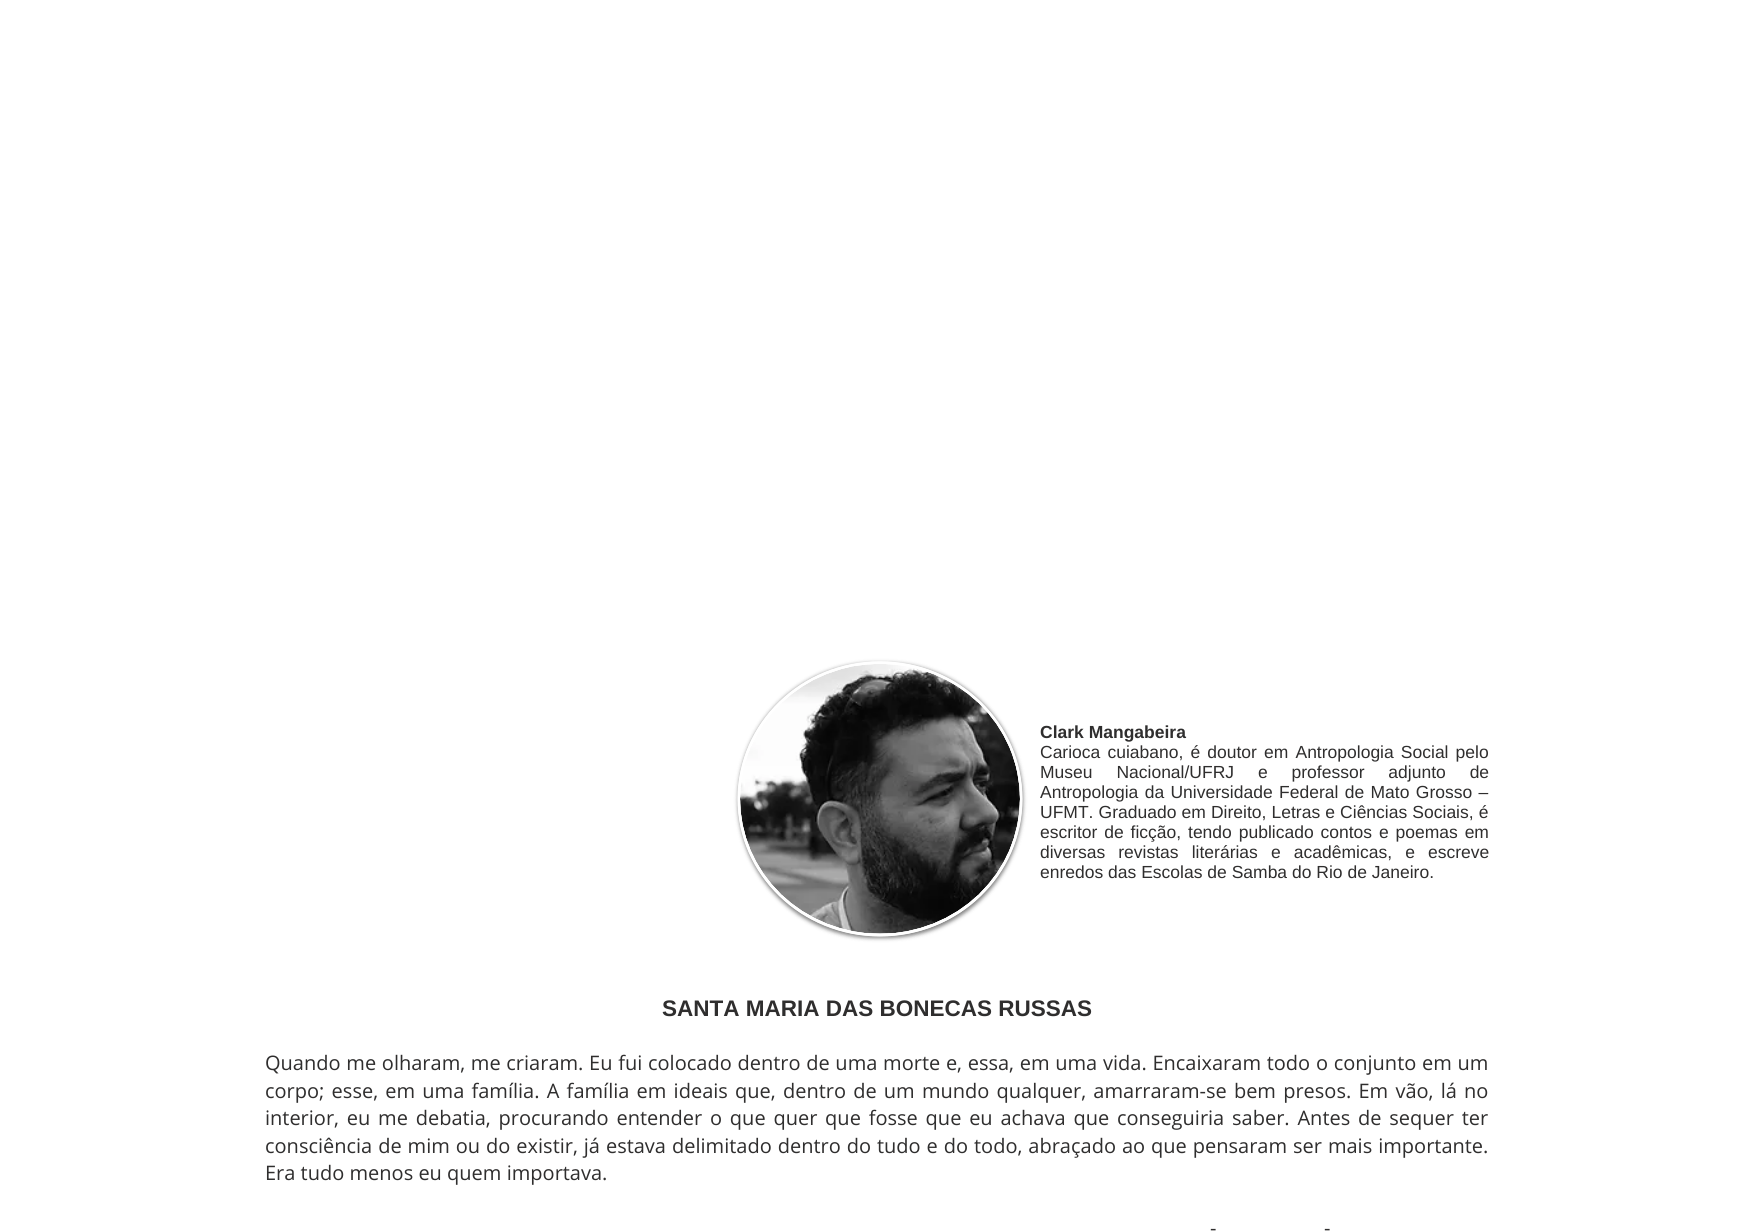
#include <cairo/cairo.h>
#include <math.h>
#include <stddef.h>

static cairo_t *cr;

static void use_color(int r, int g, int b) {
  cairo_set_source_rgb(cr, r / 255.0, g / 255.0, b / 255.0);
}

static void text(double x, double y, const char *s, const char *family, double size, int italic, int bold, int r, int g, int b) {
  cairo_select_font_face(cr, family, italic ? CAIRO_FONT_SLANT_ITALIC : CAIRO_FONT_SLANT_NORMAL,
    bold ? CAIRO_FONT_WEIGHT_BOLD : CAIRO_FONT_WEIGHT_NORMAL);
  cairo_set_font_size(cr, size);
  use_color(r, g, b);
  cairo_move_to(cr, x, y);
  cairo_show_text(cr, s);
}

static void spaced_text(double x, double y, const char *s, double letter, double word) {
  cairo_move_to(cr, x, y);
  while (*s) {
    char ch[5] = {0};
    int n = 0;
    do ch[n++] = *s++; while ((*s & 0xC0) == 0x80);
    cairo_show_text(cr, ch);
    cairo_rel_move_to(cr, letter + word * (*ch == ' '), 0);
  }
}

static void round_rect(double x, double y, double w, double h, double r) {
  cairo_new_sub_path(cr);
  cairo_arc(cr, x + w - r, y + h - r, r, 0, M_PI / 2);
  cairo_arc(cr, x + r, y + h - r, r, M_PI / 2, M_PI);
  cairo_arc(cr, x + r, y + r, r, M_PI, 1.5 * M_PI);
  cairo_arc(cr, x + w - r, y + r, r, 1.5 * M_PI, 2 * M_PI);
  cairo_close_path(cr);
}

static void shadow(double x, double y, double w, double h, double r, double blur, double alpha) {
  cairo_push_group_with_content(cr, CAIRO_CONTENT_ALPHA);
  cairo_set_operator(cr, CAIRO_OPERATOR_SOURCE);
  for (int i = 15; i >= -15 && fmin(w, h) + blur * i / 3 > 0; i -= 2) {
    double e = blur * i / 6;
    cairo_set_source_rgba(cr, 0, 0, 0, alpha * erfc((i - 1) / 8.5) / 2);
    round_rect(x - e, y - e, w + 2 * e, h + 2 * e, fmax(0, fmin(r + e + blur * .6, fmin(w, h) / 2 + e)));
    cairo_fill(cr);
  }
  cairo_pattern_t *soft = cairo_pop_group(cr);
  cairo_mask(cr, soft);
  cairo_pattern_destroy(soft);
}

static void picture(const char *path, double x, double y, double w, double h) {
  cairo_surface_t *image = cairo_image_surface_create_from_png(path);
  cairo_save(cr);
  cairo_set_source_surface(cr, image, x, y);
  cairo_rectangle(cr, x, y, w, h);
  cairo_fill(cr);
  cairo_restore(cr);
  cairo_surface_destroy(image);
}

static void draw(void) {
  use_color(255, 255, 255);
  cairo_paint(cr);
  use_color(0, 0, 0);
  shadow(738, 663, 285, 275, 137.5, 2, 0.5);
  use_color(255, 255, 255);
  cairo_new_path(cr);
  cairo_move_to(cr, 880, 661.5);
  cairo_curve_to(cr, 958.5, 661.5, 1022.5, 723, 1022.5, 799);
  cairo_curve_to(cr, 1022.5, 875, 958.5, 936.5, 880, 936.5);
  cairo_curve_to(cr, 801.5, 936.5, 737.5, 875, 737.5, 799);
  cairo_curve_to(cr, 737.5, 723, 801.5, 661.5, 880, 661.5);
  cairo_close_path(cr);
  cairo_fill(cr);
  cairo_new_path(cr);
  cairo_move_to(cr, 880, 662.5);
  cairo_curve_to(cr, 958, 662.5, 1021, 723.5, 1021, 799);
  cairo_curve_to(cr, 1021, 874, 958, 935, 880, 935);
  cairo_curve_to(cr, 802, 935, 739, 874, 739, 799);
  cairo_curve_to(cr, 739, 723.5, 802, 662.5, 880, 662.5);
  cairo_close_path(cr);
  cairo_set_line_width(cr, 2.5);
  cairo_stroke(cr);
  picture("img_01.png", 740, 664, 280, 270);
  text(1040, 738, "Clark Mangabeira", "Liberation Sans", 17.5, 0, 1, 47, 46, 46);
  cairo_select_font_face(cr, "Liberation Sans", CAIRO_FONT_SLANT_NORMAL, CAIRO_FONT_WEIGHT_NORMAL);
  spaced_text(1040, 758, "Carioca cuiabano, é doutor em Antropologia Social pelo", 0, 2.25);
  spaced_text(1040, 778, "Museu Nacional/UFRJ e professor adjunto de", 0, 19);
  spaced_text(1040, 798, "Antropologia da Universidade Federal de Mato Grosso –", 0, 1.5);
  spaced_text(1040, 818, "UFMT. Graduado em Direito, Letras e Ciências Sociais, é", 0, 0.25);
  spaced_text(1040, 838, "escritor de ficção, tendo publicado contos e poemas em", 0, 2);
  spaced_text(1040, 858, "diversas revistas literárias e acadêmicas, e escreve", 0, 8.25);
  text(1040, 878, "enredos das Escolas de Samba do Rio de Janeiro.", "Liberation Sans", 17.5, 0, 0, 47, 46, 46);
  text(662, 1016, "SANTA MARIA DAS BONECAS RUSSAS", "Liberation Sans", 22.5, 0, 1, 47, 46, 46);
  cairo_select_font_face(cr, "Open Sans", CAIRO_FONT_SLANT_NORMAL, CAIRO_FONT_WEIGHT_NORMAL);
  cairo_set_font_size(cr, 20);
  spaced_text(265, 1070, "Quando me olharam, me criaram. Eu fui colocado dentro de uma morte e, essa, em uma vida. Encaixaram todo o conjunto em um", 0, 0.5);
  spaced_text(265, 1098, "corpo; esse, em uma família. A família em ideais que, dentro de um mundo qualquer, amarraram-se bem presos. Em vão, lá no", 0, 2);
  spaced_text(265, 1125, "interior, eu me debatia, procurando entender o que quer que fosse que eu achava que conseguiria saber. Antes de sequer ter", 0, 2.6);
  spaced_text(265, 1153, "consciência de mim ou do existir, já estava delimitado dentro do tudo e do todo, abraçado ao que pensaram ser mais importante.", 0, 0.75);
  text(265, 1180, "Era tudo menos eu quem importava.", "Open Sans", 20, 0, 0, 47, 46, 46);
  spaced_text(1210, 1235, "-", 0, 2);
  spaced_text(1324, 1235, "-", 0, 2);
}

int main(void) {
  cairo_surface_t *surface = cairo_image_surface_create(CAIRO_FORMAT_RGB24, 1754, 1231);
  cr = cairo_create(surface);
  cairo_font_options_t *options = cairo_font_options_create();
  cairo_font_options_set_hint_metrics(options, CAIRO_HINT_METRICS_OFF);
  cairo_font_options_set_hint_style(options, CAIRO_HINT_STYLE_NONE);
  cairo_set_font_options(cr, options);
  cairo_set_miter_limit(cr, 4);
  draw();
  cairo_surface_write_to_png(surface, "out.png");
  cairo_font_options_destroy(options);
  cairo_destroy(cr);
  cairo_surface_destroy(surface);
  return 0;
}
